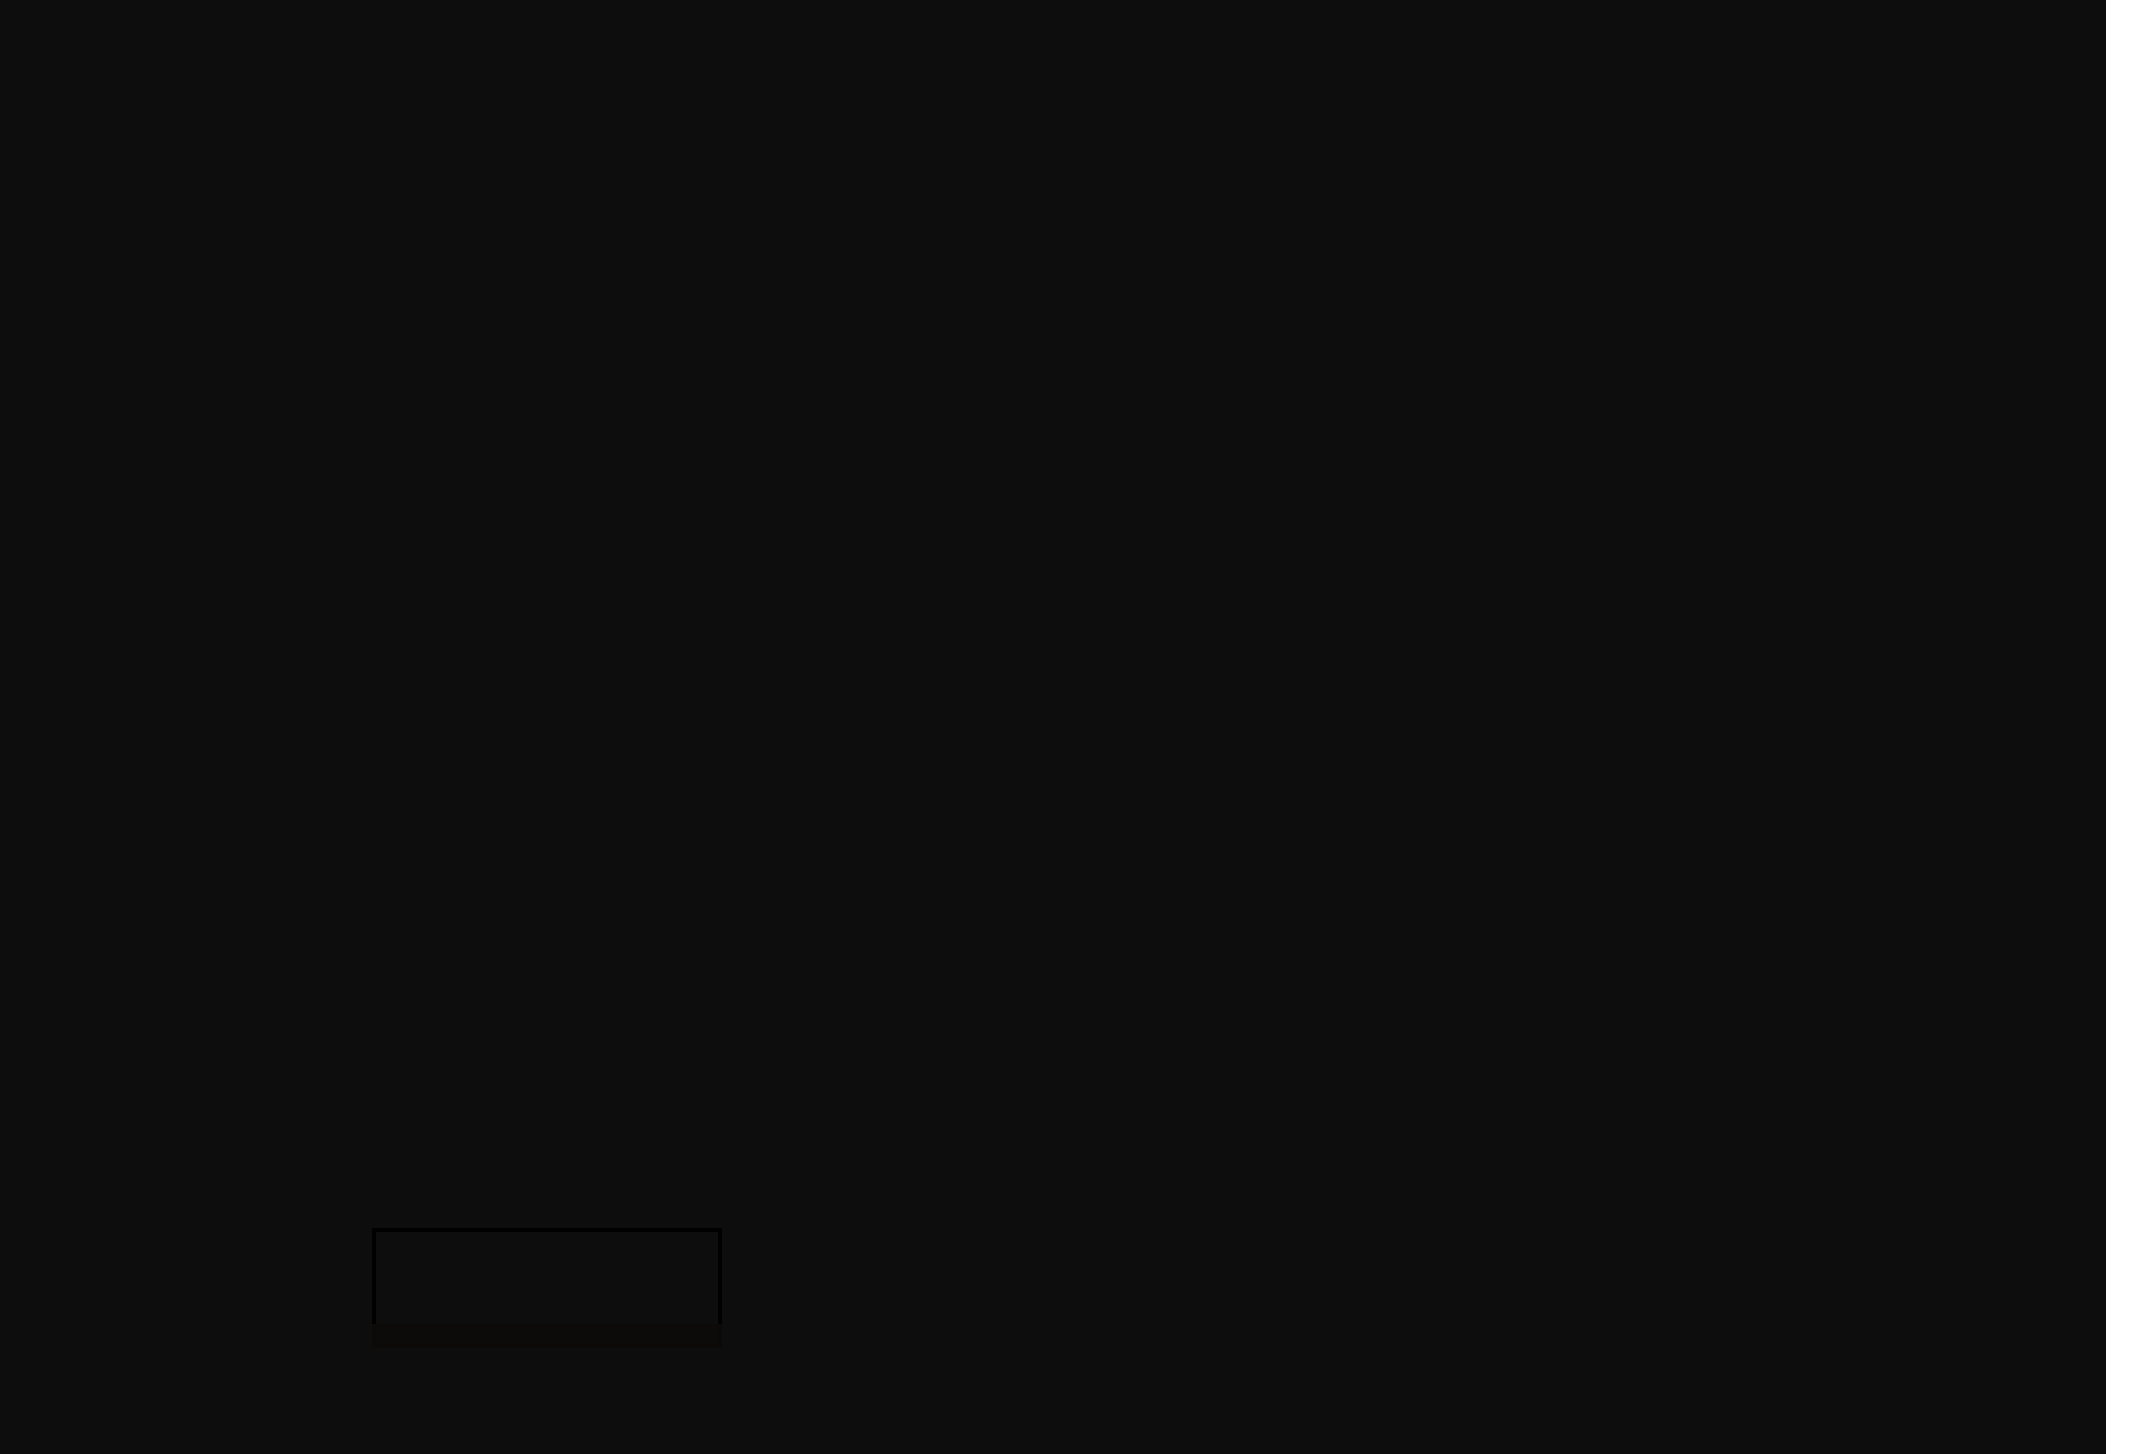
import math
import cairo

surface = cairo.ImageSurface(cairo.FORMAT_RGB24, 2136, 1454)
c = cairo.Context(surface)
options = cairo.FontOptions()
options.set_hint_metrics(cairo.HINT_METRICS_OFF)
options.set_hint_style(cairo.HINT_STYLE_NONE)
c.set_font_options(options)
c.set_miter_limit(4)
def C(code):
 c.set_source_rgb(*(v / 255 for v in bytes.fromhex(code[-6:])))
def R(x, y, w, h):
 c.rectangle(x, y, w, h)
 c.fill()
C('ffffff')
c.paint()
C('0d0d0d')
R(0,0,2106,1454)
c.rectangle(374,1230,346,116)
C('000000')
c.set_line_width(4)
c.stroke()
c.set_source_rgba(0.051,0.047,0.043,0.9)
R(372,1324,350,24)
surface.write_to_png('o.png')
